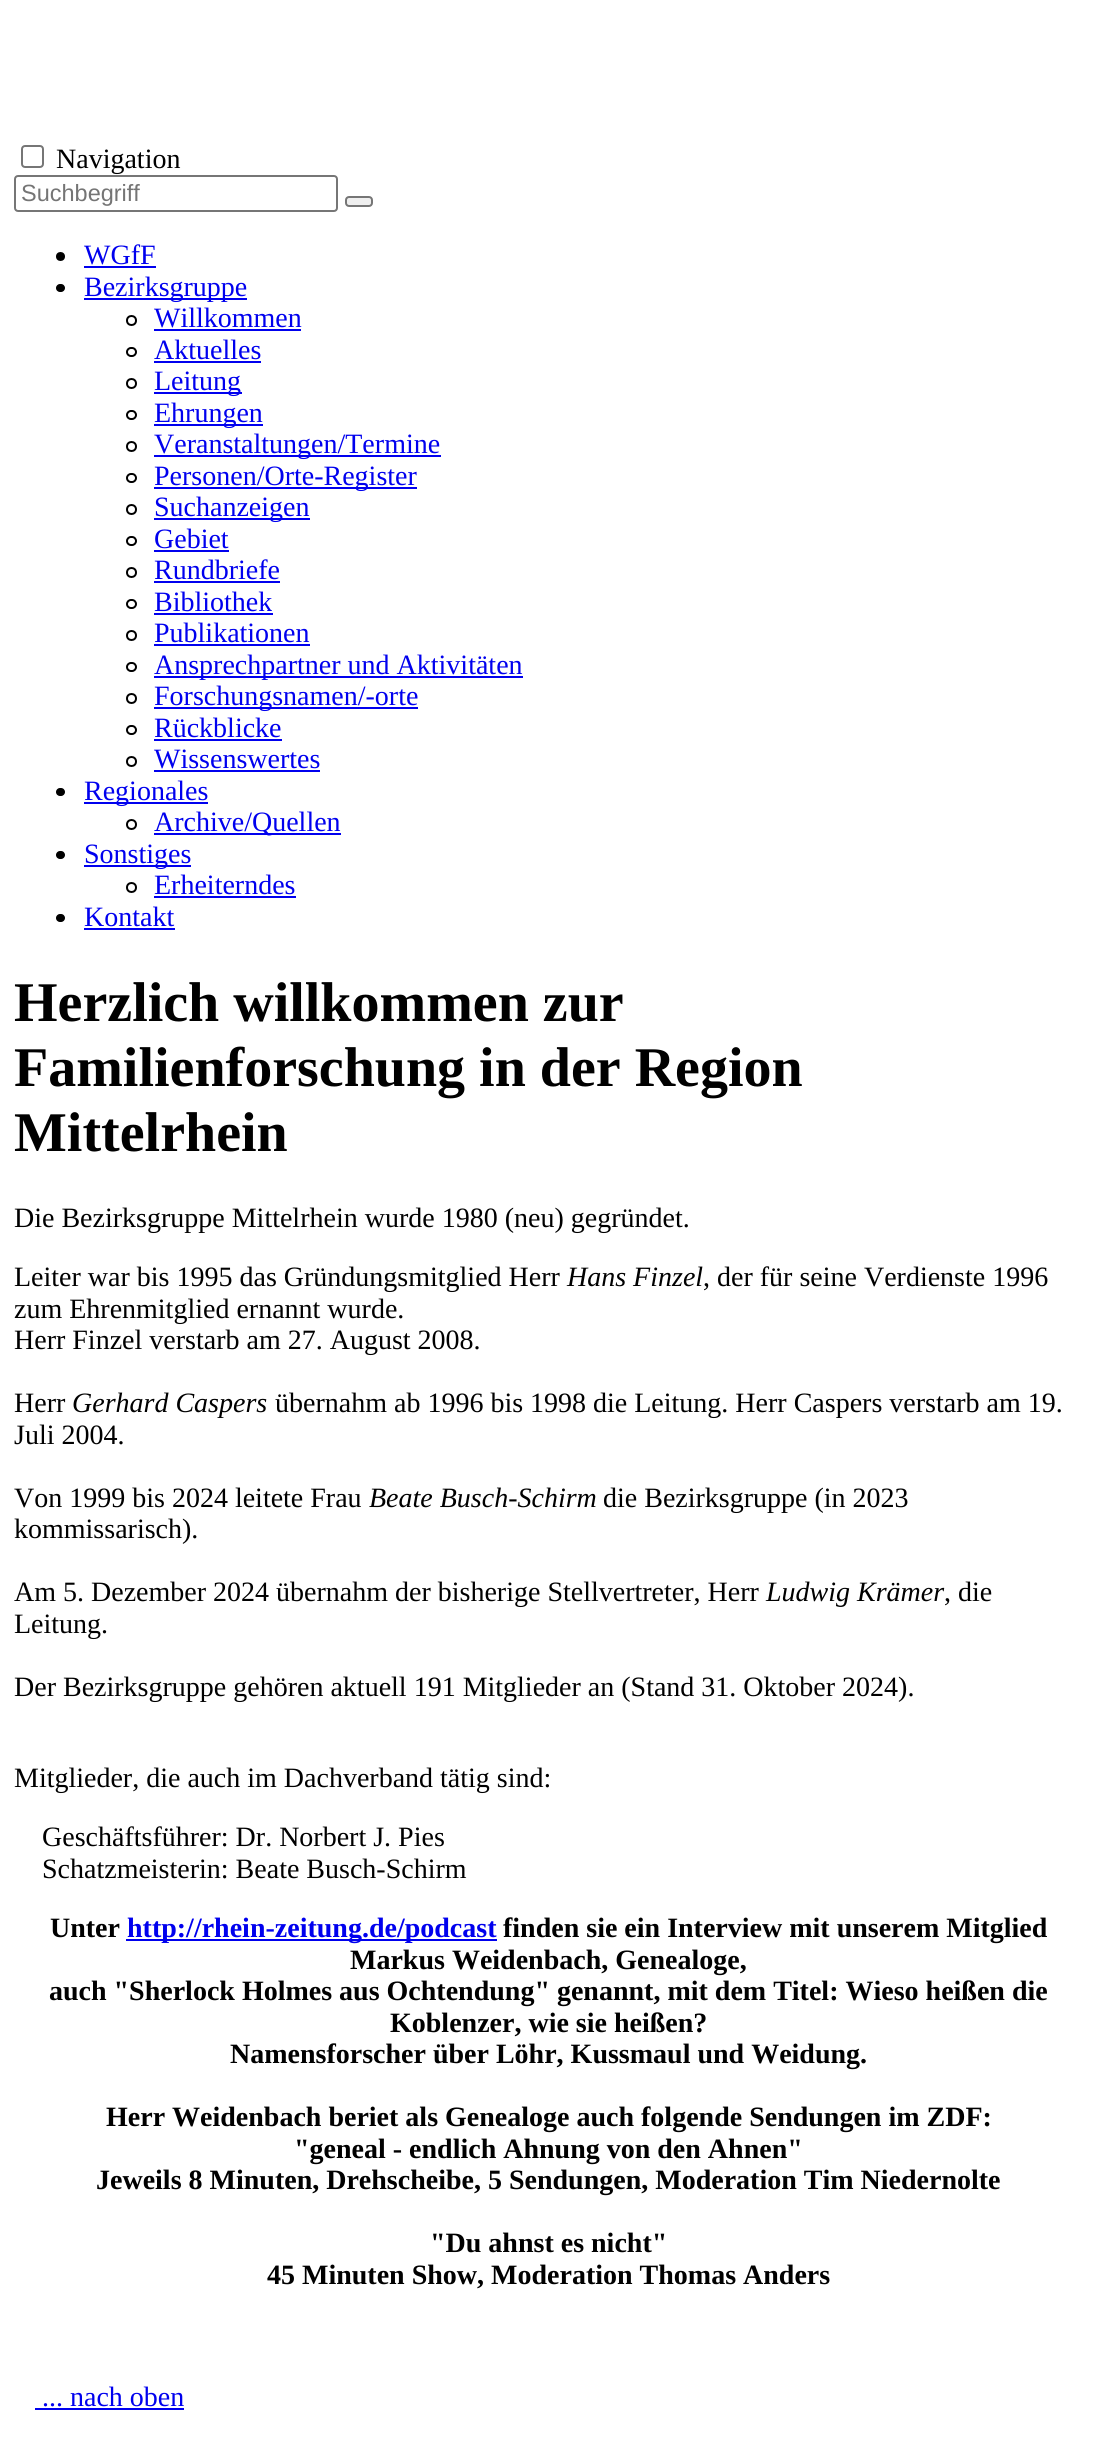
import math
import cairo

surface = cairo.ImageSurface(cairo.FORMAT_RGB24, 1096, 2463)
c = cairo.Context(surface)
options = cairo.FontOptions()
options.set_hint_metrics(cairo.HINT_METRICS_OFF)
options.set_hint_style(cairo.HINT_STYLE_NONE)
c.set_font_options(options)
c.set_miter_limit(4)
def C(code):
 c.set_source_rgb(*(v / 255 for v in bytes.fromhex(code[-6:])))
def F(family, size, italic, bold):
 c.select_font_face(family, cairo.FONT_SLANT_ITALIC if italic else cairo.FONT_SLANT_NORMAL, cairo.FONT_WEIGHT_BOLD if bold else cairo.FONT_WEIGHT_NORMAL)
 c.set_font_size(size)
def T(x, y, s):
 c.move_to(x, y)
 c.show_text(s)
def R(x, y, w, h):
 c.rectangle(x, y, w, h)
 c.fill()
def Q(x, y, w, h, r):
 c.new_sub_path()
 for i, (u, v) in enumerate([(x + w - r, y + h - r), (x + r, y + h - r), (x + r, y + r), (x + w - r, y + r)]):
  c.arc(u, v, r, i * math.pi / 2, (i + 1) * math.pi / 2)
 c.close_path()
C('ffffff')
c.paint()
Q(22,146,21,21,3)
C('767676')
c.stroke()
F('Liberation Serif',28,0,0)
C('000000')
T(56,168,'Navigation')
Q(15,176,322,35,3)
C('767676')
c.stroke()
F('Liberation Sans',23.5,0,0)
C('757575')
T(21,201,'Suchbegriff')
C('efefef')
Q(346,197,26,9,3)
c.fill_preserve()
C('767676')
c.stroke()
C('000000')
c.arc(60.5,256.5,4.5,0,2 * math.pi)
c.fill()
F('Liberation Serif',28,0,0)
C('0000ee')
T(84,264,'WGfF')
R(84,266,72,2)
C('000000')
Q(56,284,9,8,4)
c.fill()
C('0000ee')
R(84,298,163,2)
T(84,296,'Bezirksgruppe')
c.new_path()
c.arc(131.5,320.5,4.5,0,2 * math.pi)
C('000000')
c.stroke()
C('0000ee')
T(154,327,'Willkommen')
R(154,329,147,2)
Q(127,348,9,8,4)
C('000000')
c.stroke()
C('0000ee')
T(154,359,'Aktuelles')
R(154,361,107,2)
c.new_path()
c.arc(131.5,383.5,4.5,0,2 * math.pi)
C('000000')
c.stroke()
C('0000ee')
R(154,392,88,2)
T(154,390,'Leitung')
Q(127,411,9,8,4)
C('000000')
c.stroke()
C('0000ee')
R(154,424,109,2)
T(154,422,'Ehrungen')
c.new_path()
c.arc(131.5,446.5,4.5,0,2 * math.pi)
C('000000')
c.stroke()
C('0000ee')
R(154,455,287,2)
T(154,453,'Veranstaltungen/Termine')
Q(127,474,9,8,4)
C('000000')
c.stroke()
C('0000ee')
R(154,487,263,2)
T(154,485,'Personen/Orte-Register')
c.new_path()
c.arc(131.5,509.5,4.5,0,2 * math.pi)
C('000000')
c.stroke()
C('0000ee')
R(154,518,156,2)
T(154,516,'Suchanzeigen')
Q(127,537,9,8,4)
C('000000')
c.stroke()
C('0000ee')
T(154,548,'Gebiet')
R(154,550,75,2)
c.new_path()
c.arc(131.5,572.5,4.5,0,2 * math.pi)
C('000000')
c.stroke()
C('0000ee')
T(154,579,'Rundbriefe')
R(154,581,126,2)
Q(127,600,9,8,4)
C('000000')
c.stroke()
C('0000ee')
T(154,611,'Bibliothek')
R(154,613,119,2)
c.new_path()
c.arc(131.5,635.5,4.5,0,2 * math.pi)
C('000000')
c.stroke()
C('0000ee')
T(154,642,'Publikationen')
R(154,644,156,2)
Q(127,663,9,8,4)
C('000000')
c.stroke()
C('0000ee')
R(154,676,369,2)
T(154,674,'Ansprechpartner und Aktivitäten')
c.new_path()
c.arc(131.5,698.5,4.5,0,2 * math.pi)
C('000000')
c.stroke()
C('0000ee')
R(154,707,264,2)
T(154,705,'Forschungsnamen/-orte')
Q(127,726,9,8,4)
C('000000')
c.stroke()
C('0000ee')
T(154,737,'Rückblicke')
R(154,739,128,2)
c.new_path()
c.arc(131.5,761.5,4.5,0,2 * math.pi)
C('000000')
c.stroke()
C('0000ee')
T(154,768,'Wissenswertes')
R(154,770,166,2)
C('000000')
Q(56,788,9,8,4)
c.fill()
C('0000ee')
R(84,802,124,2)
T(84,800,'Regionales')
c.new_path()
c.arc(131.5,824.5,4.5,0,2 * math.pi)
C('000000')
c.stroke()
C('0000ee')
R(154,833,187,2)
T(154,831,'Archive/Quellen')
C('000000')
Q(56,851,9,8,4)
c.fill()
C('0000ee')
R(84,865,107,2)
T(84,863,'Sonstiges')
c.new_path()
c.arc(131.5,887.5,4.5,0,2 * math.pi)
C('000000')
c.stroke()
C('0000ee')
T(154,894,'Erheiterndes')
R(154,896,142,2)
C('000000')
Q(56,914,9,8,4)
c.fill()
C('0000ee')
T(84,926,'Kontakt')
R(84,928,91,2)
F('Liberation Serif',56,0,1)
C('000000')
T(14,1021,'Herzlich willkommen zur')
T(14,1086,'Familienforschung in der Region')
T(14,1151,'Mittelrhein')
F('Liberation Serif',28,0,0)
T(14,1227,'Die Bezirksgruppe Mittelrhein wurde 1980 (neu) gegründet.')
T(14,1286,'Leiter war bis 1995 das Gründungsmitglied Herr')
F('Liberation Serif',28,1,0)
T(567,1286,'Hans Finzel')
F('Liberation Serif',28,0,0)
T(703,1286,', der für seine Verdienste 1996')
T(14,1318,'zum Ehrenmitglied ernannt wurde.')
T(14,1349,'Herr Finzel verstarb am 27. August 2008.')
T(14,1412,'Herr')
F('Liberation Serif',28,1,0)
T(72,1412,'Gerhard Caspers')
F('Liberation Serif',28,0,0)
T(275,1412,'übernahm ab 1996 bis 1998 die Leitung. Herr Caspers verstarb am 19.')
T(14,1444,'Juli 2004.')
T(14,1507,'Von 1999 bis 2024 leitete Frau')
F('Liberation Serif',28,1,0)
T(369,1507,'Beate Busch-Schirm')
F('Liberation Serif',28,0,0)
T(603,1507,'die Bezirksgruppe (in 2023')
T(14,1538,'kommissarisch).')
T(14,1601,'Am 5. Dezember 2024 übernahm der bisherige Stellvertreter, Herr')
F('Liberation Serif',28,1,0)
T(766,1601,'Ludwig Krämer')
F('Liberation Serif',28,0,0)
T(944,1601,', die')
T(14,1633,'Leitung.')
T(14,1696,'Der Bezirksgruppe gehören aktuell 191 Mitglieder an (Stand 31. Oktober 2024).')
T(14,1787,'Mitglieder, die auch im Dachverband tätig sind:')
T(42,1846,'Geschäftsführer: Dr. Norbert J. Pies')
T(42,1878,'Schatzmeisterin: Beate Busch-Schirm')
F('Liberation Serif',28,0,1)
T(50,1937,'Unter')
C('0000ee')
R(126,1939,371,2)
T(127,1937,'http://rhein-zeitung.de/podcast')
C('000000')
T(503,1937,'finden sie ein Interview mit unserem Mitglied')
T(350,1969,'Markus Weidenbach, Genealoge,')
T(49,2000,'auch "Sherlock Holmes aus Ochtendung" genannt, mit dem Titel: Wieso heißen die')
T(390,2032,'Koblenzer, wie sie heißen?')
T(230,2063,'Namensforscher über Löhr, Kussmaul und Weidung.')
T(106,2126,'Herr Weidenbach beriet als Genealoge auch folgende Sendungen im ZDF:')
T(294,2158,'"geneal - endlich Ahnung von den Ahnen"')
T(96,2189,'Jeweils 8 Minuten, Drehscheibe, 5 Sendungen, Moderation Tim Niedernolte')
T(430,2252,'"Du ahnst es nicht"')
T(267,2284,'45 Minuten Show, Moderation Thomas Anders')
F('Liberation Serif',28,0,0)
C('0000ee')
T(42,2406,'... nach oben')
R(35,2408,149,2)
surface.write_to_png('o.png')
